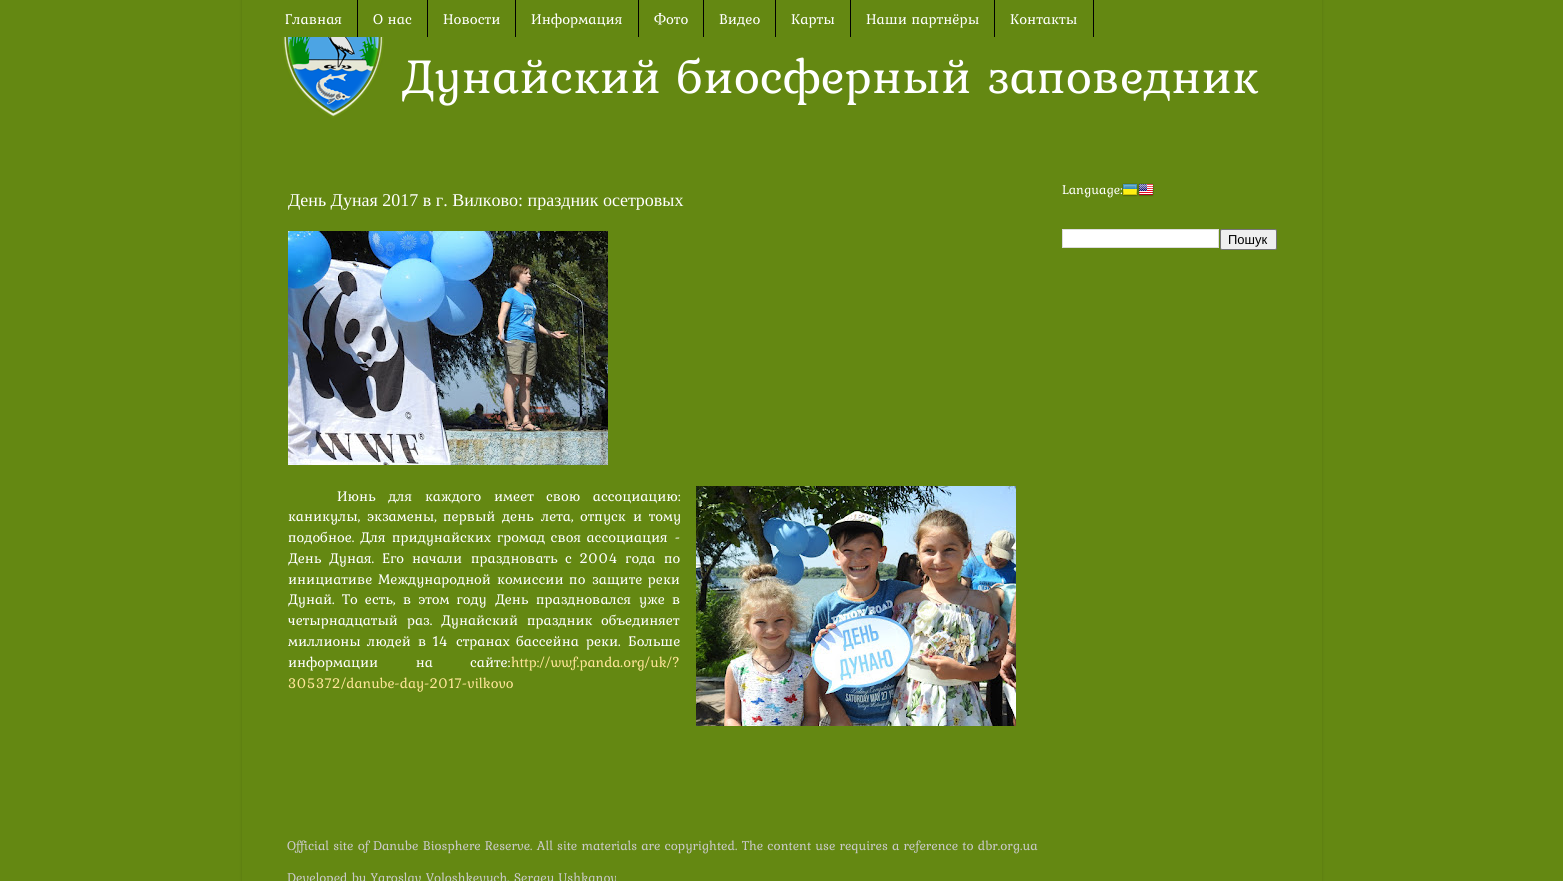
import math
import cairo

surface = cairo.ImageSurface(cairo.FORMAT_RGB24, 1563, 881)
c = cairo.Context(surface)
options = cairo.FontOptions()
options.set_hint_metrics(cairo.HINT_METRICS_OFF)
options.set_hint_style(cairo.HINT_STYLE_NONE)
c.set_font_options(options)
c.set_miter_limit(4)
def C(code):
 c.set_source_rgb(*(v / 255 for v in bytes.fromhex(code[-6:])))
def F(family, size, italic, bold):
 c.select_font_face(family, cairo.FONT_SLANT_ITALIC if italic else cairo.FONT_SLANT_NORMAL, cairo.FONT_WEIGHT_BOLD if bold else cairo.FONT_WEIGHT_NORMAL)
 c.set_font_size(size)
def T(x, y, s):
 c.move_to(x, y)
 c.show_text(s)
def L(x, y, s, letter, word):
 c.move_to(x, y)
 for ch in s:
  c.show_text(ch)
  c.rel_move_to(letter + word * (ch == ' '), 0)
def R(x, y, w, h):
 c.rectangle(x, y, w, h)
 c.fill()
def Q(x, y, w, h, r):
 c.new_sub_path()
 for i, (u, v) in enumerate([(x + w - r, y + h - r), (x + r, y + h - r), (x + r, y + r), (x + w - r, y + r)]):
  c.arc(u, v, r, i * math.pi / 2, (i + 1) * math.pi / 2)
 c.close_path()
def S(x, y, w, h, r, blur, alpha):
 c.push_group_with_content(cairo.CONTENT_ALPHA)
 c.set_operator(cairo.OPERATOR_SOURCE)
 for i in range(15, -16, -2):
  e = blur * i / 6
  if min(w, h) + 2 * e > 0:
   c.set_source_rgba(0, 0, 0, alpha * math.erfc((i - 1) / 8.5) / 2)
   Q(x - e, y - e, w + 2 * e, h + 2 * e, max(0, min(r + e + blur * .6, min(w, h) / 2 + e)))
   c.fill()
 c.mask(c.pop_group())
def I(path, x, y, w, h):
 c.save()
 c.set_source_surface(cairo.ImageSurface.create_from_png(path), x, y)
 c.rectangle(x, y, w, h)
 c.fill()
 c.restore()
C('648812')
c.paint()
C('000000')
S(242,-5,1080,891,0,1.5,.15)
C('648812')
R(242,0,1080,881)
C('000000')
R(357,0,1,37)
F('Kurale',15,0,0)
C('ffffff')
T(285,24,'Главная')
C('000000')
R(427,0,1,37)
C('ffffff')
T(373,24,'О нас')
C('000000')
R(515,0,1,37)
C('ffffff')
T(443,24,'Новости')
C('000000')
R(638,0,1,37)
C('ffffff')
T(531,24,'Информация')
C('000000')
R(703,0,1,37)
C('ffffff')
T(654,24,'Фото')
C('000000')
R(775,0,1,37)
C('ffffff')
T(719,24,'Видео')
C('000000')
R(850,0,1,37)
C('ffffff')
T(791,24,'Карты')
C('000000')
R(994,0,1,37)
C('ffffff')
T(866,24,'Наши партнёры')
C('000000')
R(1093,0,1,37)
C('ffffff')
T(1010,24,'Контакты')
I('1.png',282,37,103,81)
F('Kurale',50,0,0)
T(401,93,'Дунайский биосферный заповедник')
F('Liberation Serif',18,0,0)
T(288,206,'День Дуная 2017 в г. Вилково: праздник осетровых')
I('2.png',288,231,320,234)
F('Kurale',14.8,0,0)
L(337,501,'Июнь для',0,8)
T(425,501,'каждого')
T(494,501,'имеет')
L(546,501,'свою ассоциацию',0,8)
T(678,501,':')
T(288,521,'каникулы,')
T(367,521,'экзамены,')
T(443,521,'первый')
T(502,521,'день')
T(541,521,'лета,')
T(580,521,'отпуск')
L(633,521,'и тому',0,2)
T(288,542,'подобное.')
T(360,542,'Для')
T(392,542,'придунайских')
L(497,542,'громад своя ассоциация',0,1)
T(675,542,'-')
T(288,563,'День')
T(329,563,'Дуная.')
T(382,563,'Его')
T(412,563,'начали')
T(471,563,'праздновать')
L(565,563,'с 2004 года',0,3)
T(664,563,'по')
T(288,584,'инициативе')
T(378,584,'Международной')
L(497,584,'комиссии по',0,1)
L(592,584,'защите реки',0,1)
T(288,604,'Дунай.')
L(342,604,'То есть, в этом году',0,2.5)
T(495,604,'День')
T(536,604,'праздновался')
T(639,604,'уже')
T(672,604,'в')
T(288,625,'четырнадцатый')
T(407,625,'раз.')
T(441,625,'Дунайский')
L(527,625,'праздник объединяет',0,4)
T(288,646,'миллионы')
T(367,646,'людей')
L(418,646,'в 14',0,2)
T(456,646,'странах')
T(516,646,'бассейна')
T(586,646,'реки.')
T(628,646,'Больше')
L(288,667,'информации на',0,33)
T(470,667,'сайте:')
C('ffe599')
T(511,667,'http://wwf.panda.org/uk/?')
T(288,688,'305372/danube-day-2017-vilkovo')
I('3.png',696,486,320,240)
F('Kurale',13.5,0,0)
C('ffffff')
T(1062,194,'Language:')
I('4.png',1122,183,16,14)
I('5.png',1138,183,16,14)
c.rectangle(1062.5,229.5,156,18)
c.fill_preserve()
C('dddddd')
c.set_line_width(1)
c.stroke()
C('efefef')
Q(1220.5,229.5,56,20,1.5)
c.fill_preserve()
C('767676')
c.stroke()
F('Liberation Sans',13,0,0)
C('000000')
T(1228,244,'Пошук')
F('Kurale',13.5,0,0)
C('cacaca')
T(287,850,'Official site of Danube Biosphere Reserve. All site materials are copyrighted. The content use requires a reference to dbr.org.ua')
T(287,882,'Developed by Yaroslav Voloshkevych, Sergey Ushkanov')
surface.write_to_png('o.png')
